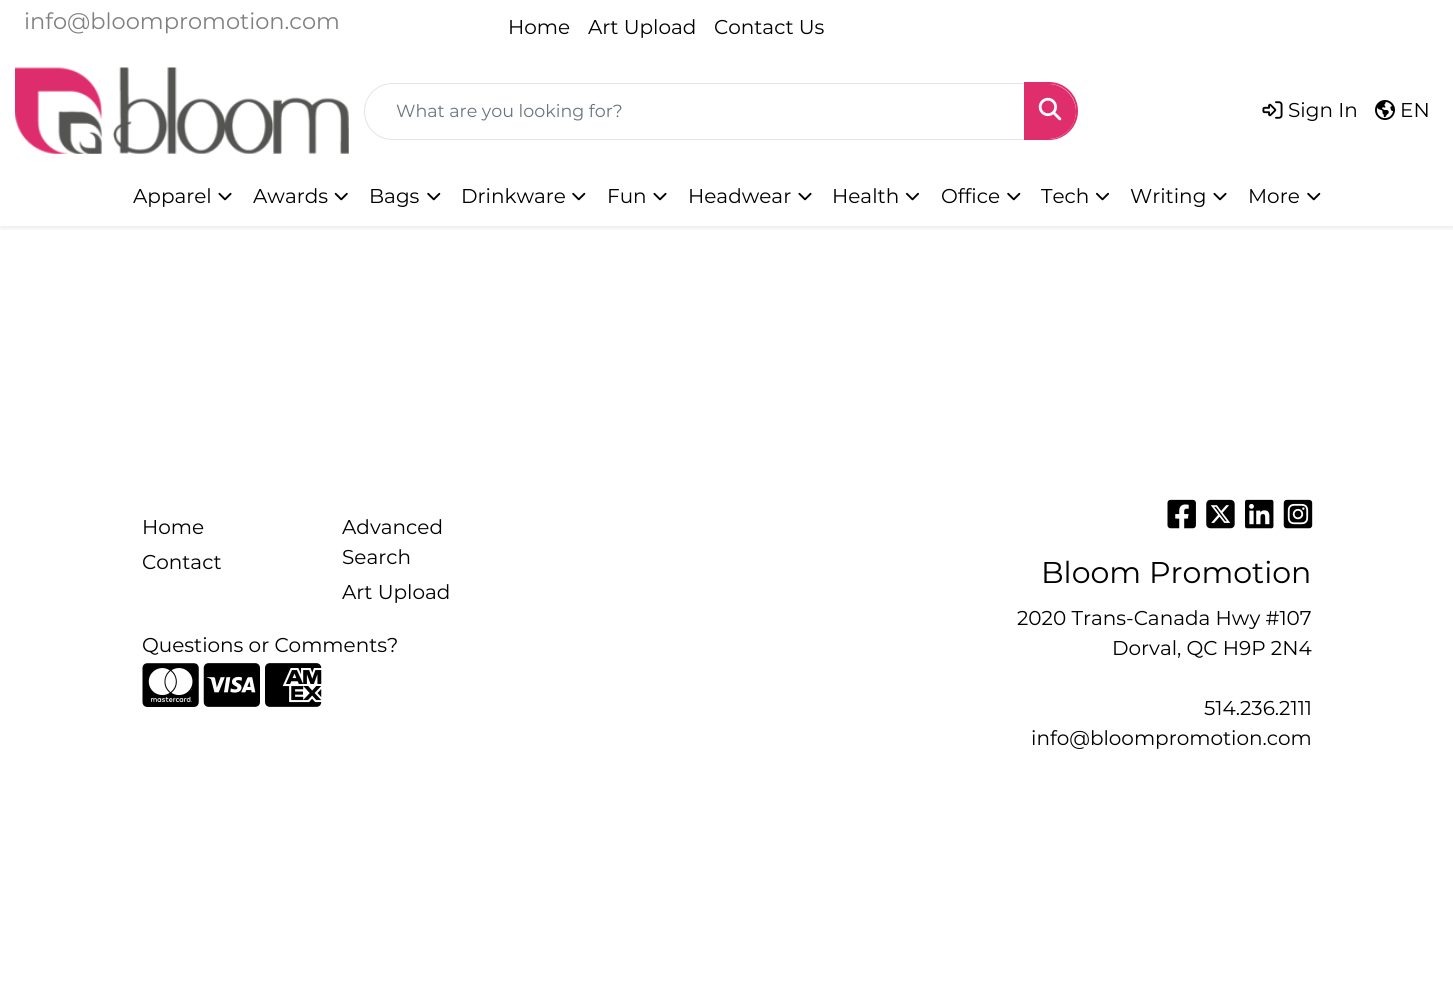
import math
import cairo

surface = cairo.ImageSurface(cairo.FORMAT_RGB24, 1453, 992)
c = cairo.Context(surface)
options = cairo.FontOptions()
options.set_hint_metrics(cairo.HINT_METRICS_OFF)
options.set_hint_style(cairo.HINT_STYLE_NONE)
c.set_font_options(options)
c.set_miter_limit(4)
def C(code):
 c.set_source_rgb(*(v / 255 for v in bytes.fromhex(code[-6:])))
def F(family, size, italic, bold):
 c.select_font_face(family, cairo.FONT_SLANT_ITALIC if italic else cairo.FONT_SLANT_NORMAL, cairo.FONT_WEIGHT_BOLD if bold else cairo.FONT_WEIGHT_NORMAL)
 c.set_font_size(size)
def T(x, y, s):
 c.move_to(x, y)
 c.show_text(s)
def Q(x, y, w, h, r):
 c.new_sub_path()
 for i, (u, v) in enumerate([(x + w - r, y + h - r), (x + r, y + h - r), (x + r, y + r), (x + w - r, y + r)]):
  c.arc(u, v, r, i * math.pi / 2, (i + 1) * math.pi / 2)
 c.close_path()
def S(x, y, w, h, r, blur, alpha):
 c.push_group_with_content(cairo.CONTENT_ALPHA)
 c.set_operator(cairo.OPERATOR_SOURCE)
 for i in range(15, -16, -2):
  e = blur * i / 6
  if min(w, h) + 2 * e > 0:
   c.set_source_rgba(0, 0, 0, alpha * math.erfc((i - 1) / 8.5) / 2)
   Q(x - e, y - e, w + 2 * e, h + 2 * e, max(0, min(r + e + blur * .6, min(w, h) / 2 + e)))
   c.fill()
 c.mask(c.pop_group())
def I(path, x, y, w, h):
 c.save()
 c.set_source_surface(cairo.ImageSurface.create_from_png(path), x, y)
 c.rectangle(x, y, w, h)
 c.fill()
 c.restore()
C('ffffff')
c.paint()
F('Montserrat Thin',22.5,0,0)
C('808080')
T(24,29,'info@bloompromotion.com')
F('Montserrat Thin',20,0,0)
C('000000')
T(508,34,'Home')
T(588,34,'Art Upload')
T(714,34,'Contact Us')
I('1.png',15,67,334,87)
c.new_path()
c.move_to(392.5,83.5)
c.line_to(1024.5,83.5)
c.line_to(1024.5,139.5)
c.line_to(392.5,139.5)
c.curve_to(377,139.5,364.5,127,364.5,111.5)
c.curve_to(364.5,96,377,83.5,392.5,83.5)
c.close_path()
C('e4e4e4')
c.set_line_width(1)
c.stroke()
F('Montserrat Thin',17.5,0,0)
C('6c757d')
T(396,117,'What are you looking for?')
C('e02e6c')
c.new_path()
c.move_to(1024,84)
c.line_to(1048.5,84)
c.curve_to(1063.5,84,1076,96.5,1076,111.5)
c.curve_to(1076,126.5,1063.5,139,1048.5,139)
c.line_to(1024,139)
c.close_path()
c.fill()
c.set_fill_rule(cairo.FILL_RULE_EVEN_ODD)
c.new_path()
c.move_to(1024,82)
c.line_to(1049,82)
c.curve_to(1065,82,1078,95,1078,111)
c.curve_to(1078,127,1065,140,1049,140)
c.line_to(1024,140)
c.close_path()
c.move_to(1024,84)
c.line_to(1049,84)
c.curve_to(1064,84,1076,96,1076,111)
c.curve_to(1076,126,1064,139,1049,139)
c.line_to(1024,139)
c.close_path()
c.fill()
I('2.png',1038,97,24,24)
I('3.png',1262,101,21,18)
F('Montserrat Thin',20,0,0)
C('000000')
T(1288,117,'Sign In')
I('4.png',1375,100,20,20)
T(1400,117,'EN')
c.save()
c.set_fill_rule(cairo.FILL_RULE_WINDING)
c.rectangle(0,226,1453,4)
c.clip()
C('000000')
S(0,169,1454,60,0,2.5,.07)
c.restore()
T(133,203,'Apparel')
I('5.png',218,192,14,9)
T(253,203,'Awards')
I('6.png',334,192,14,9)
T(369,203,'Bags')
I('7.png',427,192,14,9)
T(461,203,'Drinkware')
I('7.png',572,192,14,9)
T(607,203,'Fun')
I('5.png',653,192,14,9)
T(688,203,'Headwear')
I('5.png',798,192,14,9)
T(832,203,'Health')
I('8.png',906,192,13,9)
T(941,203,'Office')
I('7.png',1007,192,14,9)
T(1041,203,'Tech')
I('8.png',1096,192,13,9)
T(1130,203,'Writing')
I('5.png',1213,192,14,9)
T(1248,203,'More')
I('7.png',1307,192,14,9)
T(142,534,'Home')
T(142,569,'Contact')
T(342,534,'Advanced')
T(342,564,'Search')
T(342,599,'Art Upload')
T(142,652,'Questions or Comments?')
I('9.png',142,663,57,44)
I('10.png',203,663,57,44)
I('11.png',265,663,57,44)
I('12.png',1167,499,29,30)
I('13.png',1206,499,29,30)
I('14.png',1245,499,29,30)
I('15.png',1283,499,30,30)
F('Montserrat Thin',30,0,0)
T(1041,583,'Bloom Promotion')
F('Montserrat Thin',20,0,0)
T(1017,625,'2020 Trans-Canada Hwy #107')
T(1112,655,'Dorval, QC H9P 2N4')
T(1204,715,'514.236.2111')
T(1031,745,'info@bloompromotion.com')
surface.write_to_png('o.png')
